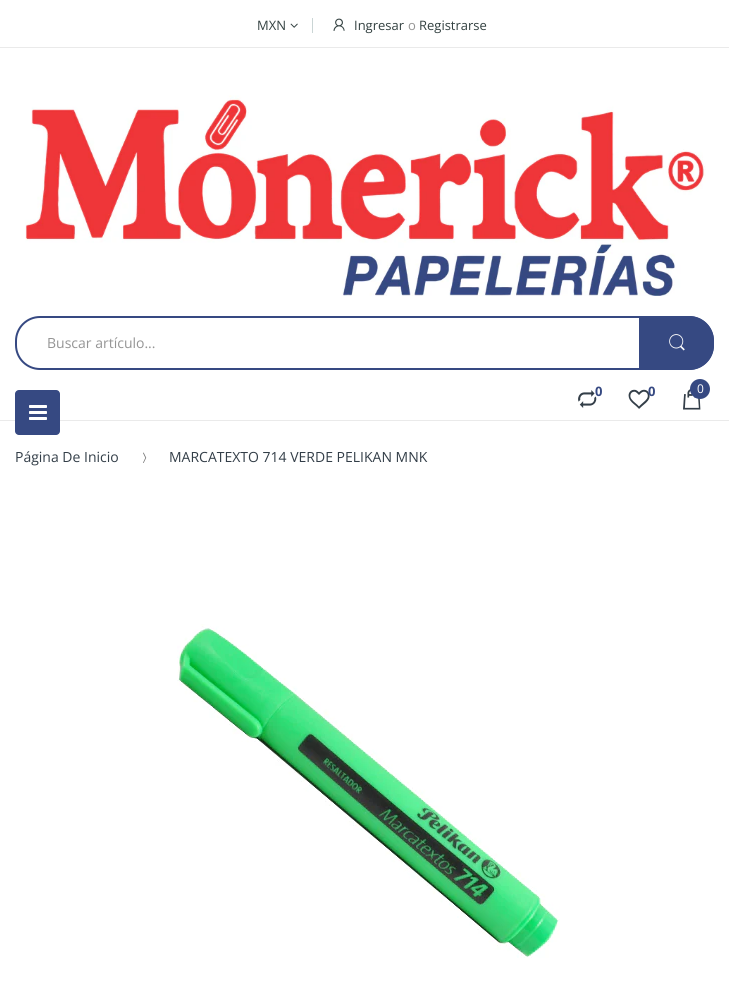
import math
import cairo

surface = cairo.ImageSurface(cairo.FORMAT_RGB24, 729, 1005)
c = cairo.Context(surface)
options = cairo.FontOptions()
options.set_hint_metrics(cairo.HINT_METRICS_OFF)
options.set_hint_style(cairo.HINT_STYLE_NONE)
c.set_font_options(options)
c.set_miter_limit(4)
def C(code):
 c.set_source_rgb(*(v / 255 for v in bytes.fromhex(code[-6:])))
def F(family, size, italic, bold):
 c.select_font_face(family, cairo.FONT_SLANT_ITALIC if italic else cairo.FONT_SLANT_NORMAL, cairo.FONT_WEIGHT_BOLD if bold else cairo.FONT_WEIGHT_NORMAL)
 c.set_font_size(size)
def T(x, y, s):
 c.move_to(x, y)
 c.show_text(s)
def R(x, y, w, h):
 c.rectangle(x, y, w, h)
 c.fill()
def Q(x, y, w, h, r):
 c.new_sub_path()
 for i, (u, v) in enumerate([(x + w - r, y + h - r), (x + r, y + h - r), (x + r, y + r), (x + w - r, y + r)]):
  c.arc(u, v, r, i * math.pi / 2, (i + 1) * math.pi / 2)
 c.close_path()
def I(path, x, y, w, h):
 c.save()
 c.set_source_surface(cairo.ImageSurface.create_from_png(path), x, y)
 c.rectangle(x, y, w, h)
 c.fill()
 c.restore()
C('ffffff')
c.paint()
C('eaeaea')
R(0,47,729,1)
F('Open Sans',13,0,0)
C('334141')
T(257,30,'MXN')
I('1.png',290,23,8,5)
C('cad5d5')
R(312,18,1,15)
I('2.png',333,18,12,13)
C('334141')
T(354,30,'Ingresar')
C('959595')
T(408,30,'o')
C('334141')
T(419,30,'Registrarse')
I('3.png',25,95,681,201)
Q(16,317,697,52,24)
C('364982')
c.stroke()
F('Open Sans',14,0,0)
C('959595')
T(47,348,'Buscar artículo...')
C('364982')
c.new_path()
c.move_to(639,316)
c.line_to(689,316)
c.curve_to(703,316,714,327,714,341)
c.line_to(714,345)
c.curve_to(714,359,703,370,689,370)
c.line_to(639,370)
c.close_path()
c.fill()
I('4.png',669,334,16,17)
C('eaeaea')
R(0,420,729,1)
C('364982')
Q(15,390,45,45,4)
c.fill()
I('5.png',29,405,18,15)
I('6.png',578,390,19,18)
F('Open Sans',13,0,1)
T(595,396,'0')
I('7.png',628,389,22,20)
T(648,396,'0')
I('8.png',683,389,18,21)
c.arc(700,389,10,0,2 * math.pi)
c.fill()
F('Open Sans',12,0,0)
C('fefefe')
T(697,393,'0')
F('Open Sans',14,0,0)
C('333e48')
T(15,462,'Página De Inicio')
I('9.png',143,452,4,11)
T(169,462,'MARCATEXTO 714 VERDE PELIKAN MNK')
I('10.png',177,624,383,334)
surface.write_to_png('o.png')
